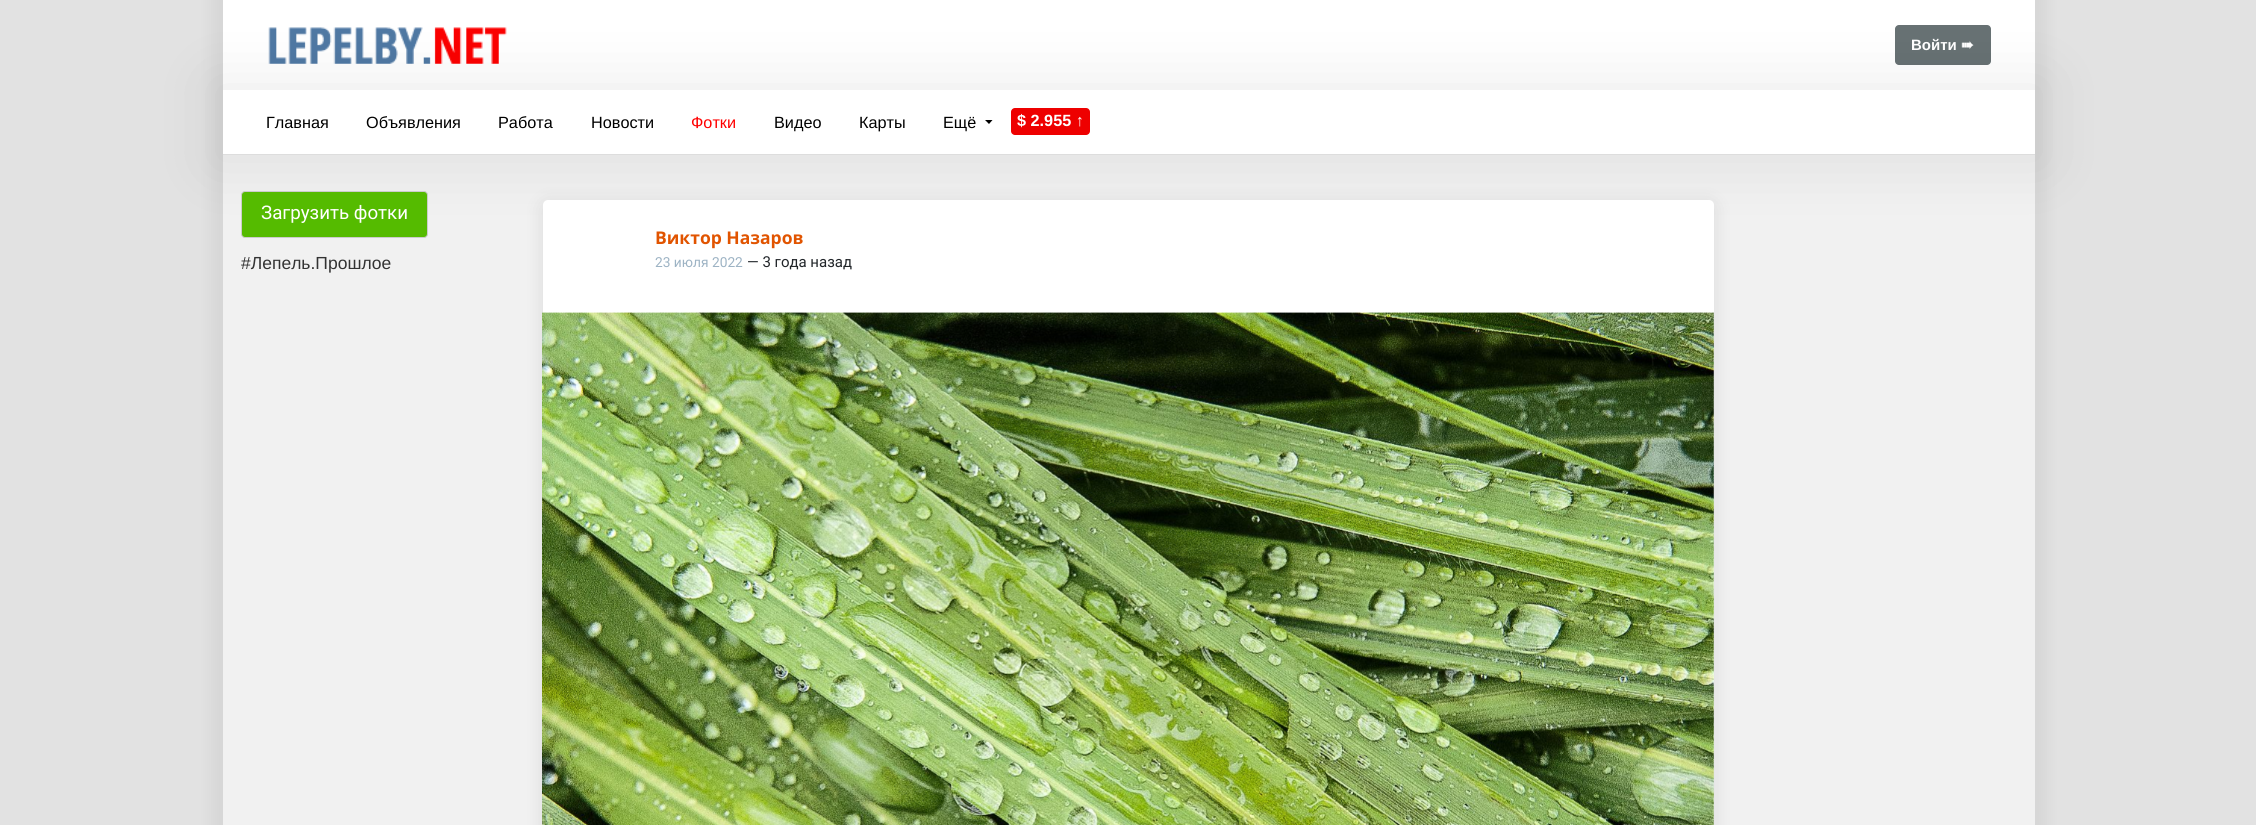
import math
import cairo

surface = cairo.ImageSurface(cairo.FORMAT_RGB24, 2256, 825)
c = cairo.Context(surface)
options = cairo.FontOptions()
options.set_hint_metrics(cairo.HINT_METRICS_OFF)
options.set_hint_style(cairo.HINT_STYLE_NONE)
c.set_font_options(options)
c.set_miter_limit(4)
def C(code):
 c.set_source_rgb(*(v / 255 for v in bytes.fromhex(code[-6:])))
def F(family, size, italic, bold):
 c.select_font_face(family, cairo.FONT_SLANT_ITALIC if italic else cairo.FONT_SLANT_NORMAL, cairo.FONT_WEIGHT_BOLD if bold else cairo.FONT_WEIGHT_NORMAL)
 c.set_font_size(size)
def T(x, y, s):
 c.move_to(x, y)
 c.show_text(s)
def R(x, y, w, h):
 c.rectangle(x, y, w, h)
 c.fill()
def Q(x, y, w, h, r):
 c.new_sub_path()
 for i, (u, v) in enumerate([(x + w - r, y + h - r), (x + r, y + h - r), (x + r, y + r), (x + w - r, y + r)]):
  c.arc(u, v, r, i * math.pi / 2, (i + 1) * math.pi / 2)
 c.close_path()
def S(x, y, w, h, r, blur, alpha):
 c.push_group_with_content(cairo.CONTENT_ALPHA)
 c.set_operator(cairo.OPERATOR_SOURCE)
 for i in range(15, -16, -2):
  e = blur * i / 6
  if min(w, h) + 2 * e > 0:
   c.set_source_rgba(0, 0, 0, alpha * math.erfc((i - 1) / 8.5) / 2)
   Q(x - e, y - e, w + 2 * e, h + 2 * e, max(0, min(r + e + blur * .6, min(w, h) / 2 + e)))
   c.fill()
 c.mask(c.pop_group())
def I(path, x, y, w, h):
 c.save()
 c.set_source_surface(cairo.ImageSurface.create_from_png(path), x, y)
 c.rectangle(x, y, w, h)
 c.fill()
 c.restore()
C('e2e2e2')
c.paint()
C('000000')
S(210,-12,1838,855,0,6,.05)
C('ffffff')
R(223,0,1812,154)
I('1.png',268,27,239,37)
C('677173')
Q(1895,25,96,40,4)
c.fill()
F('Liberation Sans',15,0,1)
C('ffffff')
T(1911,50,'Войти')
F('DejaVu Sans',15,0,1)
T(1961,50,'➠')
C('f1f1f1')
R(223,155,1812,670)
c.save()
c.set_fill_rule(cairo.FILL_RULE_EVEN_ODD)
c.new_path()
c.move_to(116,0)
c.line_to(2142,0)
c.line_to(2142,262)
c.line_to(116,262)
c.close_path()
c.move_to(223,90)
c.line_to(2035,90)
c.line_to(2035,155)
c.line_to(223,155)
c.close_path()
c.clip()
C('000000')
S(210,78,1838,90,0,31,.07)
c.restore()
C('dddddd')
R(223,154,1812,1)
F('Liberation Sans',16.25,0,0)
C('000000')
T(266,128,'Главная')
T(366,128,'Объявления')
T(498,128,'Работа')
T(591,128,'Новости')
C('ff0000')
T(691,128,'Фотки')
C('000000')
T(774,128,'Видео')
T(859,128,'Карты')
T(943,128,'Ещё')
c.new_path()
c.move_to(985,120)
c.line_to(992.5,120)
c.line_to(989,124)
c.close_path()
c.fill()
C('ee0000')
Q(1011,108,79,27,4)
c.fill()
F('Liberation Sans',16.25,0,1)
C('ffffff')
T(1017,126,'$ 2.955 ↑')
C('55bb00')
Q(241.5,191.5,186,46,3.5)
c.fill_preserve()
C('cccccc')
c.set_line_width(1)
c.stroke()
F('Roboto',18.75,0,0)
C('ffffff')
T(261,219,'Загрузить фотки')
F('Liberation Sans',17.5,0,0)
C('333333')
T(241,269,'#Лепель.Прошлое')
C('000000')
S(543,203,1171,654,5,9,.1)
C('ffffff')
Q(543,200,1171,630,5)
c.fill()
F('Open Sans',17.5,0,1)
C('e15400')
T(655,244,'Виктор Назаров')
F('Roboto',13.75,0,0)
C('9db3c4')
T(655,267,'23 июля 2022')
F('Roboto',15,0,0)
C('212529')
T(747,267,'— 3 года назад')
I('2.png',542,312,1172,513)
surface.write_to_png('o.png')
